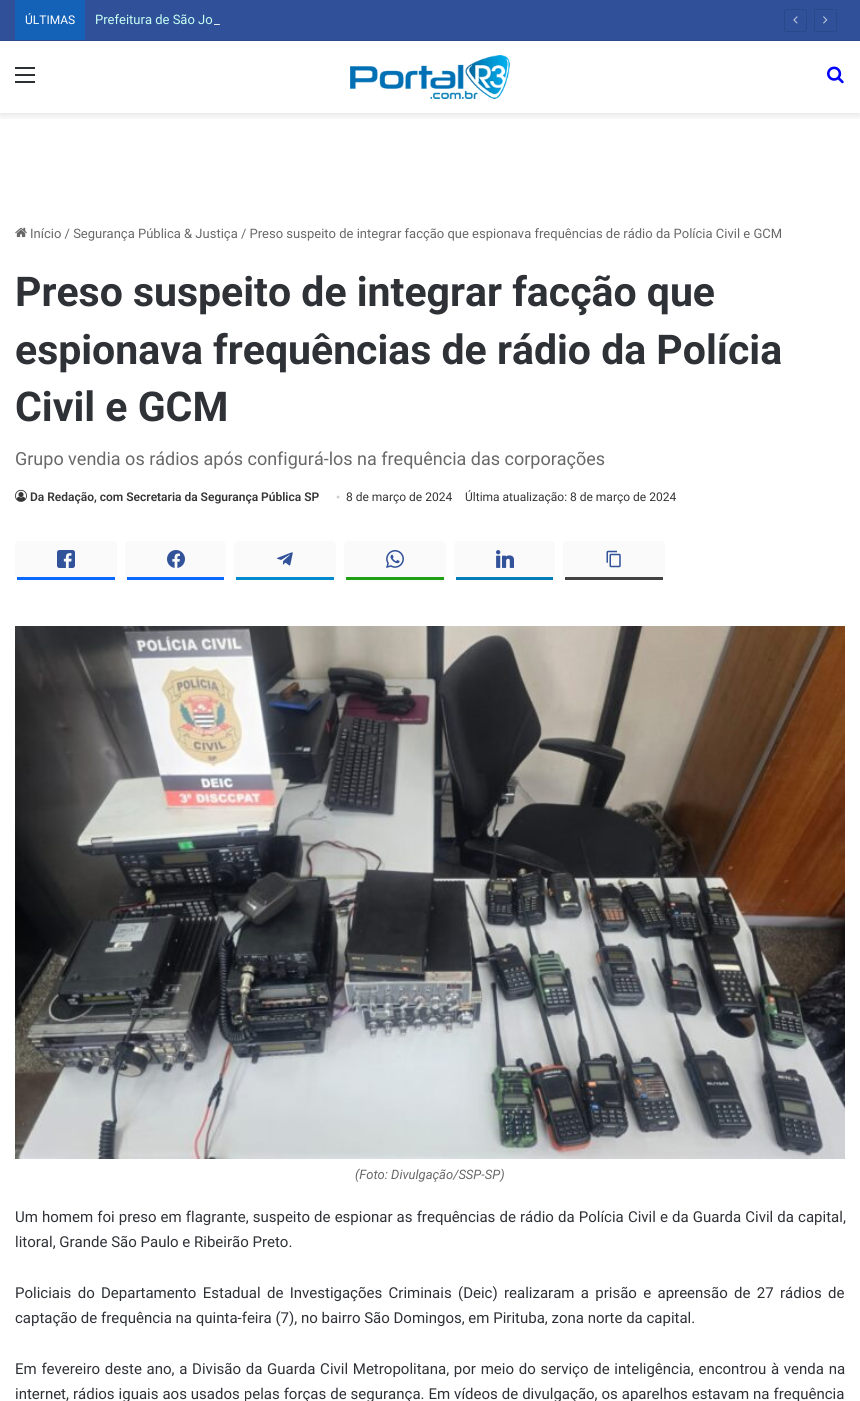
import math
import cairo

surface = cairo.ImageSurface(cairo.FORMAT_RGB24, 860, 1401)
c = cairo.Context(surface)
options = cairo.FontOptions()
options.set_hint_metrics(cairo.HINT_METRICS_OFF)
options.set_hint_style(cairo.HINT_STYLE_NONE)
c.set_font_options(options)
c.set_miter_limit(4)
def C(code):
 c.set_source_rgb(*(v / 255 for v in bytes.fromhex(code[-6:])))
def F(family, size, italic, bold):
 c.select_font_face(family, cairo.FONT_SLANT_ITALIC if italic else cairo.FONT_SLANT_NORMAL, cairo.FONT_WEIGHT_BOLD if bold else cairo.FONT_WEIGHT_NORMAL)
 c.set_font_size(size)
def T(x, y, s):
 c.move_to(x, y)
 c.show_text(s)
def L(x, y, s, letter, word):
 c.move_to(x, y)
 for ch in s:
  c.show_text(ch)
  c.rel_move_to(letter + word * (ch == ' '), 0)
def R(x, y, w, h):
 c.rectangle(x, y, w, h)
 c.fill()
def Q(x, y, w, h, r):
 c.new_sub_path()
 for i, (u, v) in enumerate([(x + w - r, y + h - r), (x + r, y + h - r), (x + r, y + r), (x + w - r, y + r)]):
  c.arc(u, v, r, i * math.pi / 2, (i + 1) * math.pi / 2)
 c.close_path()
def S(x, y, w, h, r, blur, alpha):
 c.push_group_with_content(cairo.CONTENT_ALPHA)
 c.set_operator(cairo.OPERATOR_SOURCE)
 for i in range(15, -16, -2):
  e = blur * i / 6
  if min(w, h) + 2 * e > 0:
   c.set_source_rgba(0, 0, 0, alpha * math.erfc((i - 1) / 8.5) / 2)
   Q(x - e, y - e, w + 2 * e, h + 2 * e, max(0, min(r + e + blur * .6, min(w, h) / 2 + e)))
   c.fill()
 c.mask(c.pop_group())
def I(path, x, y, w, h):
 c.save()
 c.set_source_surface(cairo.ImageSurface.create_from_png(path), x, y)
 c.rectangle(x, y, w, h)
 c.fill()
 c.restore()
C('ffffff')
c.paint()
c.save()
c.rectangle(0,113,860,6)
c.clip()
C('000000')
S(0,44,860,72,0,3.5,.1)
c.restore()
C('305099')
R(0,0,860,40)
C('2b488a')
R(0,40,860,1)
C('1462b7')
R(15,0,70,40)
F('Roboto',12,0,0)
C('ffffff')
T(25,24,'ÚLTIMAS')
F('Roboto',13,0,0)
C('c6fff3')
T(95,24,'Prefeitura de São Jo')
C('edf2f1')
T(214,24,'_')
Q(784.5,9.5,22,22,1.5)
C('2b488a')
c.set_line_width(1)
c.stroke()
I('1.png',793,16,5,8)
Q(814.5,9.5,22,22,1.5)
c.stroke()
I('2.png',823,16,5,8)
C('2c2f34')
R(15,74,20,2)
R(15,67,20,2)
R(15,81,20,2)
I('3.png',350,55,160,44)
I('4.png',827,66,17,18)
I('5.png',15,227,12,11)
C('686868')
T(30,238,'Início / Segurança Pública & Justiça / Preso suspeito de integrar facção que espionava frequências de rádio da Polícia Civil e GCM')
F('Roboto',41,0,1)
C('2e3136')
T(15,306,'Preso suspeito de integrar facção que')
T(15,364,'espionava frequências de rádio da Polícia')
T(15,421,'Civil e GCM')
F('Roboto',18,0,0)
C('686868')
T(15,465,'Grupo vendia os rádios após configurá-los na frequência das corporações')
I('6.png',15,489,12,13)
F('Roboto SemiBold',12,0,0)
C('353535')
T(30,501,'Da Redação, com Secretaria da Segurança Pública SP')
F('Liberation Serif',12,0,0)
C('cdcdcd')
T(336,501,'•')
F('Roboto',12,0,0)
C('353535')
T(346,501,'8 de março de 2024')
T(465,501,'Última atualização: 8 de março de 2024')
C('fafafa')
c.new_path()
c.move_to(19,541)
c.line_to(113,541)
c.curve_to(115,541,117,543,117,545)
c.line_to(117,576)
c.curve_to(117,577,115,577,113,577)
c.line_to(19,577)
c.curve_to(17,577,15,577,15,576)
c.line_to(15,545)
c.curve_to(15,543,17,541,19,541)
c.close_path()
c.fill()
C('0a68ff')
R(17,577,98,3)
I('7.png',57,550,18,18)
C('fafafa')
c.new_path()
c.move_to(129,541)
c.line_to(222,541)
c.curve_to(224,541,226,543,226,545)
c.line_to(226,576)
c.curve_to(226,577,224,577,222,577)
c.line_to(129,577)
c.curve_to(127,577,125,577,125,576)
c.line_to(125,545)
c.curve_to(125,543,127,541,129,541)
c.close_path()
c.fill()
C('0a68ff')
R(127,577,97,3)
I('8.png',167,550,18,18)
C('fafafa')
c.new_path()
c.move_to(238,541)
c.line_to(332,541)
c.curve_to(334,541,336,543,336,545)
c.line_to(336,576)
c.curve_to(336,577,334,577,332,577)
c.line_to(238,577)
c.curve_to(236,577,234,577,234,576)
c.line_to(234,545)
c.curve_to(234,543,236,541,238,541)
c.close_path()
c.fill()
C('0389cd')
R(236,577,98,3)
I('9.png',277,552,16,14)
C('fafafa')
c.new_path()
c.move_to(348,541)
c.line_to(442,541)
c.curve_to(444,541,446,543,446,545)
c.line_to(446,576)
c.curve_to(446,577,444,577,442,577)
c.line_to(348,577)
c.curve_to(346,577,344,577,344,576)
c.line_to(344,545)
c.curve_to(344,543,346,541,348,541)
c.close_path()
c.fill()
C('1f9f13')
R(346,577,98,3)
I('10.png',386,550,18,18)
C('fafafa')
c.new_path()
c.move_to(458,541)
c.line_to(551,541)
c.curve_to(553,541,555,543,555,545)
c.line_to(555,576)
c.curve_to(555,577,553,577,551,577)
c.line_to(458,577)
c.curve_to(456,577,454,577,454,576)
c.line_to(454,545)
c.curve_to(454,543,456,541,458,541)
c.close_path()
c.fill()
C('037cb7')
R(456,577,97,3)
I('11.png',496,550,18,18)
C('fafafa')
c.new_path()
c.move_to(567,541)
c.line_to(661,541)
c.curve_to(663,541,665,543,665,545)
c.line_to(665,576)
c.curve_to(665,577,663,577,661,577)
c.line_to(567,577)
c.curve_to(565,577,563,577,563,576)
c.line_to(563,545)
c.curve_to(563,543,565,541,567,541)
c.close_path()
c.fill()
C('424242')
R(565,577,98,3)
I('12.png',606,550,15,18)
I('13.png',15,626,830,533)
F('Roboto',13,1,0)
C('686868')
T(355,1179,'(Foto: Divulgação/SSP-SP)')
F('Roboto',15,0,0)
C('2e3136')
L(15,1222,'Um homem foi preso em flagrante, suspeito de espionar as frequências de rádio da Polícia Civil e da Guarda Civil da capital,',0,.4)
T(15,1247,'litoral, Grande São Paulo e Ribeirão Preto.')
L(15,1298,'Policiais do Departamento Estadual de Investigações Criminais (Deic) realizaram a prisão e apreensão de 27 rádios de',0,2.6)
T(15,1323,'captação de frequência na quinta-feira (7), no bairro São Domingos, em Pirituba, zona norte da capital.')
L(15,1374,'Em fevereiro deste ano, a Divisão da Guarda Civil Metropolitana, por meio do serviço de inteligência, encontrou à venda na',0,1)
L(15,1399,'internet, rádios iguais aos usados pelas forças de segurança. Em vídeos de divulgação, os aparelhos estavam na frequência',0,.25)
surface.write_to_png('o.png')
